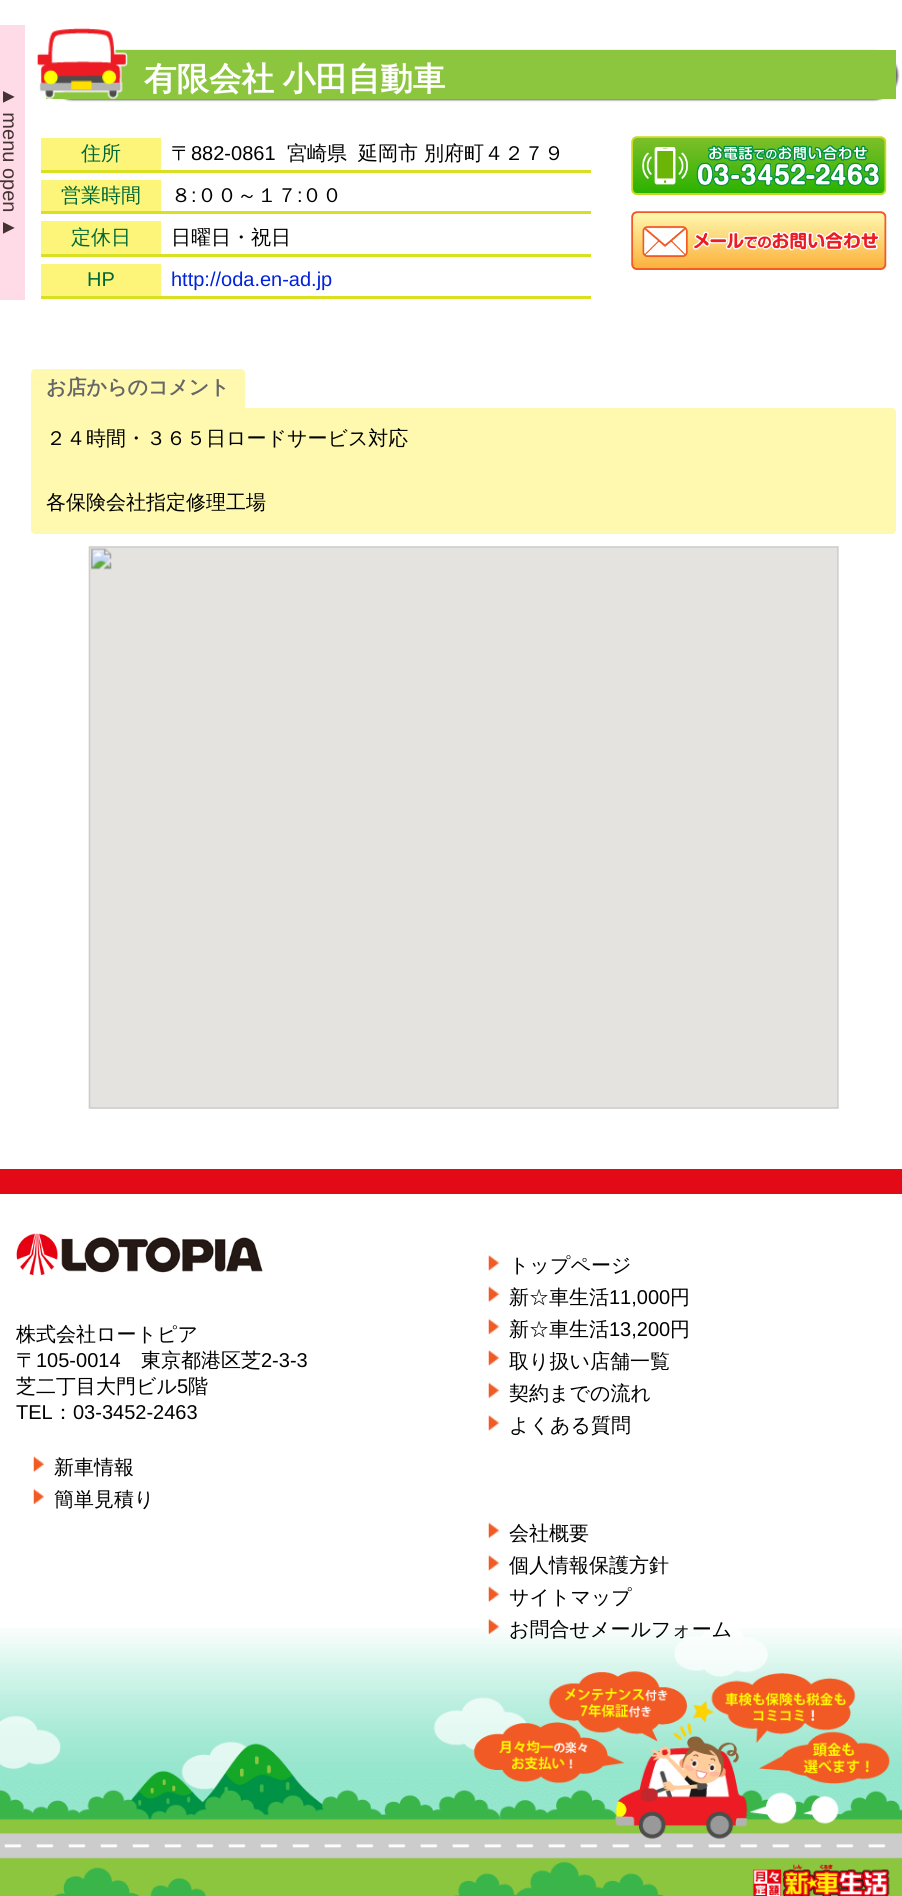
import math
import cairo

surface = cairo.ImageSurface(cairo.FORMAT_RGB24, 902, 1896)
c = cairo.Context(surface)
options = cairo.FontOptions()
options.set_hint_metrics(cairo.HINT_METRICS_OFF)
options.set_hint_style(cairo.HINT_STYLE_NONE)
c.set_font_options(options)
c.set_miter_limit(4)
def C(code):
 c.set_source_rgb(*(v / 255 for v in bytes.fromhex(code[-6:])))
def F(family, size, italic, bold):
 c.select_font_face(family, cairo.FONT_SLANT_ITALIC if italic else cairo.FONT_SLANT_NORMAL, cairo.FONT_WEIGHT_BOLD if bold else cairo.FONT_WEIGHT_NORMAL)
 c.set_font_size(size)
def T(x, y, s):
 c.move_to(x, y)
 c.show_text(s)
def L(x, y, s, letter, word):
 c.move_to(x, y)
 for ch in s:
  c.show_text(ch)
  c.rel_move_to(letter + word * (ch == ' '), 0)
def R(x, y, w, h):
 c.rectangle(x, y, w, h)
 c.fill()
def Q(x, y, w, h, r):
 c.new_sub_path()
 for i, (u, v) in enumerate([(x + w - r, y + h - r), (x + r, y + h - r), (x + r, y + r), (x + w - r, y + r)]):
  c.arc(u, v, r, i * math.pi / 2, (i + 1) * math.pi / 2)
 c.close_path()
def S(x, y, w, h, r, blur, alpha):
 c.push_group_with_content(cairo.CONTENT_ALPHA)
 c.set_operator(cairo.OPERATOR_SOURCE)
 for i in range(15, -16, -2):
  e = blur * i / 6
  if min(w, h) + 2 * e > 0:
   c.set_source_rgba(0, 0, 0, alpha * math.erfc((i - 1) / 8.5) / 2)
   Q(x - e, y - e, w + 2 * e, h + 2 * e, max(0, min(r + e + blur * .6, min(w, h) / 2 + e)))
   c.fill()
 c.mask(c.pop_group())
def I(path, x, y, w, h):
 c.save()
 c.set_source_surface(cairo.ImageSurface.create_from_png(path), x, y)
 c.rectangle(x, y, w, h)
 c.fill()
 c.restore()
C('ffffff')
c.paint()
C('ffdbe7')
R(0,25,25,275)
F('Liberation Sans',20,0,0)
C('443333')
c.save()
c.translate(3,87)
c.rotate(90 * math.pi / 180)
T(0,0,'▲ menu open ▲')
c.restore()
C('666666')
S(48,51,850,49,33,1,1)
C('8cc63f')
c.new_path()
c.move_to(79,50)
c.line_to(896,50)
c.line_to(896,99)
c.line_to(46,99)
c.line_to(46,83)
c.curve_to(46,65,61,50,79,50)
c.close_path()
c.fill()
I('1.png',37,28,91,71)
F('WenQuanYi Zen Hei',32.5,0,1)
C('ffffff')
L(144,90,'有限会社 小田自動車',0,-1)
C('fdf57a')
R(41,138,120,32)
C('d9e021')
R(41,170,550,3)
F('WenQuanYi Zen Hei Medium',20,0,0)
C('006837')
T(81,160,'住所')
C('000000')
T(171,160,'〒')
F('Liberation Sans',20,0,0)
T(191,160,'882-0861')
F('WenQuanYi Zen Hei Medium',20,0,0)
T(287,160,'宮崎県')
T(358,160,'延岡市')
T(424,160,'別府町４２７９')
C('fdf57a')
R(41,180,120,31)
C('d9e021')
R(41,211,550,3)
C('006837')
T(61,202,'営業時間')
C('000000')
T(171,202,'８')
F('Liberation Sans',20,0,0)
T(191,202,':')
F('WenQuanYi Zen Hei Medium',20,0,0)
T(197,202,'００～１７')
F('Liberation Sans',20,0,0)
T(297,202,':')
F('WenQuanYi Zen Hei Medium',20,0,0)
T(302,202,'００')
C('fdf57a')
R(41,221,120,33)
C('d9e021')
R(41,254,550,3)
C('006837')
T(71,244,'定休日')
C('000000')
T(171,244,'日曜日・祝日')
C('fdf57a')
R(41,264,120,32)
C('d9e021')
R(41,296,550,3)
F('Liberation Sans',20,0,0)
C('006837')
T(87,286,'HP')
C('0022dd')
T(171,286,'http://oda.en-ad.jp')
I('2.png',631,136,256,59)
I('3.png',631,211,256,59)
C('fef9af')
c.new_path()
c.move_to(35,369)
c.line_to(241,369)
c.curve_to(243,369,245,371,245,373)
c.line_to(245,408)
c.line_to(31,408)
c.line_to(31,373)
c.curve_to(31,371,33,369,35,369)
c.close_path()
c.fill()
F('WenQuanYi Zen Hei',20,0,1)
C('666666')
T(46,394,'お店からのコメント')
C('fef9af')
c.new_path()
c.move_to(31,408)
c.line_to(892,408)
c.curve_to(894,408,896,410,896,412)
c.line_to(896,530)
c.curve_to(896,532,894,534,892,534)
c.line_to(35,534)
c.curve_to(33,534,31,532,31,530)
c.close_path()
c.fill()
F('WenQuanYi Zen Hei Medium',20,0,0)
C('000000')
T(46,445,'２４時間・３６５日ロードサービス対応')
T(46,509,'各保険会社指定修理工場')
I('4.png',88,546,751,563)
C('e20a17')
R(0,1169,902,25)
I('5.png',0,1628,902,268)
I('6.png',16,1233,247,42)
C('000000')
T(16,1341,'株式会社ロートピア')
T(16,1367,'〒')
F('Liberation Sans',20,0,0)
T(36,1367,'105-0014')
F('WenQuanYi Zen Hei Medium',20,0,0)
T(141,1367,'東京都港区芝')
F('Liberation Sans',20,0,0)
T(261,1367,'2-3-3')
F('WenQuanYi Zen Hei Medium',20,0,0)
T(16,1393,'芝二丁目大門ビル')
F('Liberation Sans',20,0,0)
T(177,1393,'5')
F('WenQuanYi Zen Hei Medium',20,0,0)
T(188,1393,'階')
F('Liberation Sans',20,0,0)
T(16,1419,'TEL')
F('WenQuanYi Zen Hei Medium',20,0,0)
T(53,1419,'：')
F('Liberation Sans',20,0,0)
T(73,1419,'03-3452-2463')
I('7.png',33,1456,11,17)
F('WenQuanYi Zen Hei Medium',20,0,0)
T(54,1474,'新車情報')
I('8.png',33,1488,11,17)
T(54,1506,'簡単見積り')
I('9.png',488,1255,11,17)
T(509,1272,'トップページ')
I('7.png',488,1286,11,17)
T(509,1304,'新☆車生活')
F('Liberation Sans',20,0,0)
T(609,1304,'11,000')
F('WenQuanYi Zen Hei Medium',20,0,0)
T(670,1304,'円')
I('8.png',488,1318,11,17)
T(509,1336,'新☆車生活')
F('Liberation Sans',20,0,0)
T(609,1336,'13,200')
F('WenQuanYi Zen Hei Medium',20,0,0)
T(670,1336,'円')
I('9.png',488,1350,11,17)
T(509,1368,'取り扱い店舗一覧')
I('10.png',488,1382,11,17)
T(509,1400,'契約までの流れ')
I('9.png',488,1415,11,17)
T(509,1432,'よくある質問')
I('10.png',488,1522,11,17)
T(509,1540,'会社概要')
I('11.png',488,1555,11,17)
T(509,1572,'個人情報保護方針')
I('7.png',488,1586,11,17)
T(509,1604,'サイトマップ')
I('12.png',487,1618,12,18)
T(509,1636,'お問合せメールフォーム')
surface.write_to_png('o.png')
